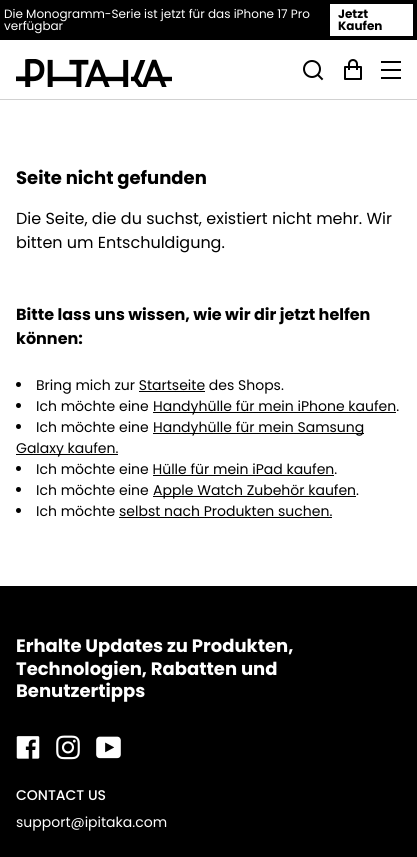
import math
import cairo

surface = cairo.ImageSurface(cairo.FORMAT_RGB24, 417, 857)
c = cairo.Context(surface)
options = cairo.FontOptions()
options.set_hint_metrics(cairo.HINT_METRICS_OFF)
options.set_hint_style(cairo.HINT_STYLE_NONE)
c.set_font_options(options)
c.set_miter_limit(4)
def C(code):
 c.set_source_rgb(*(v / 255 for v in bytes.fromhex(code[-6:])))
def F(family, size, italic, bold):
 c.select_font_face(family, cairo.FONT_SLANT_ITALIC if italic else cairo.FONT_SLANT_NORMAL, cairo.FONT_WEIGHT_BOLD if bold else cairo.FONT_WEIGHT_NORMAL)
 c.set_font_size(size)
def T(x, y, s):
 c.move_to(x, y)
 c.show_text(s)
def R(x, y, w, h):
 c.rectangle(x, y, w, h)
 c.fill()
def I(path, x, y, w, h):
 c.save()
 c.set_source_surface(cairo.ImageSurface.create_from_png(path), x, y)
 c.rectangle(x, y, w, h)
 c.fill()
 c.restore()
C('ffffff')
c.paint()
C('000000')
R(0,0,417,40)
F('Poppins',12,0,0)
C('ffffff')
T(4,18,'Die Monogramm-Serie ist jetzt für das iPhone 17 Pro')
T(4,30,'verfügbar')
R(330,4,83,32)
F('Poppins',12,0,1)
C('000000')
T(338,18,'Jetzt')
T(338,30,'Kaufen')
I('1.png',16,59,156,28)
I('2.png',303,60,21,21)
I('3.png',344,59,18,21)
R(381,69,20,2)
R(381,77,20,2)
R(381,61,20,2)
C('d1d1d1')
R(0,99,417,1)
F('Poppins',18,0,1)
C('000000')
T(16,184,'Seite nicht gefunden')
F('Poppins',16,0,0)
T(16,224,'Die Seite, die du suchst, existiert nicht mehr. Wir')
T(16,248,'bitten um Entschuldigung.')
F('Poppins',16,0,1)
T(16,320,'Bitte lass uns wissen, wie wir dir jetzt helfen')
T(16,344,'können:')
c.new_path()
c.arc(18.5,384.5,2.5,0,2 * math.pi)
c.fill()
F('Poppins',14,0,0)
T(36,390,'Bring mich zur Startseite des Shops.')
R(139,391,66,1)
c.new_path()
c.arc(18.5,405.5,2.5,0,2 * math.pi)
c.fill()
T(36,411,'Ich möchte eine')
R(153,412,243,1)
T(153,411,'Handyhülle für mein iPhone kaufen.')
c.new_path()
c.arc(18.5,426.5,2.5,0,2 * math.pi)
c.fill()
T(36,432,'Ich möchte eine')
R(153,433,211,1)
T(153,432,'Handyhülle für mein Samsung')
R(16,454,102,1)
T(16,453,'Galaxy kaufen.')
c.new_path()
c.arc(18.5,468.5,2.5,0,2 * math.pi)
c.fill()
T(36,474,'Ich möchte eine Hülle für mein iPad kaufen.')
R(153,475,181,1)
c.new_path()
c.arc(18.5,489.5,2.5,0,2 * math.pi)
c.fill()
T(36,495,'Ich möchte eine')
R(153,496,203,1)
T(153,495,'Apple Watch Zubehör kaufen.')
c.new_path()
c.arc(18.5,510.5,2.5,0,2 * math.pi)
c.fill()
T(36,516,'Ich möchte selbst nach Produkten suchen.')
R(119,517,213,1)
R(0,586,417,271)
F('Poppins',18,0,1)
C('ffffff')
T(16,652,'Erhalte Updates zu Produkten,')
T(16,675,'Technologien, Rabatten und')
T(16,697,'Benutzertipps')
I('4.png',16,736,24,23)
I('5.png',56,735,24,25)
I('6.png',96,736,25,23)
F('Poppins Medium',14,0,0)
T(16,800,'CONTACT US')
F('Poppins',14,0,0)
T(16,827,'support@ipitaka.com')
surface.write_to_png('o.png')
